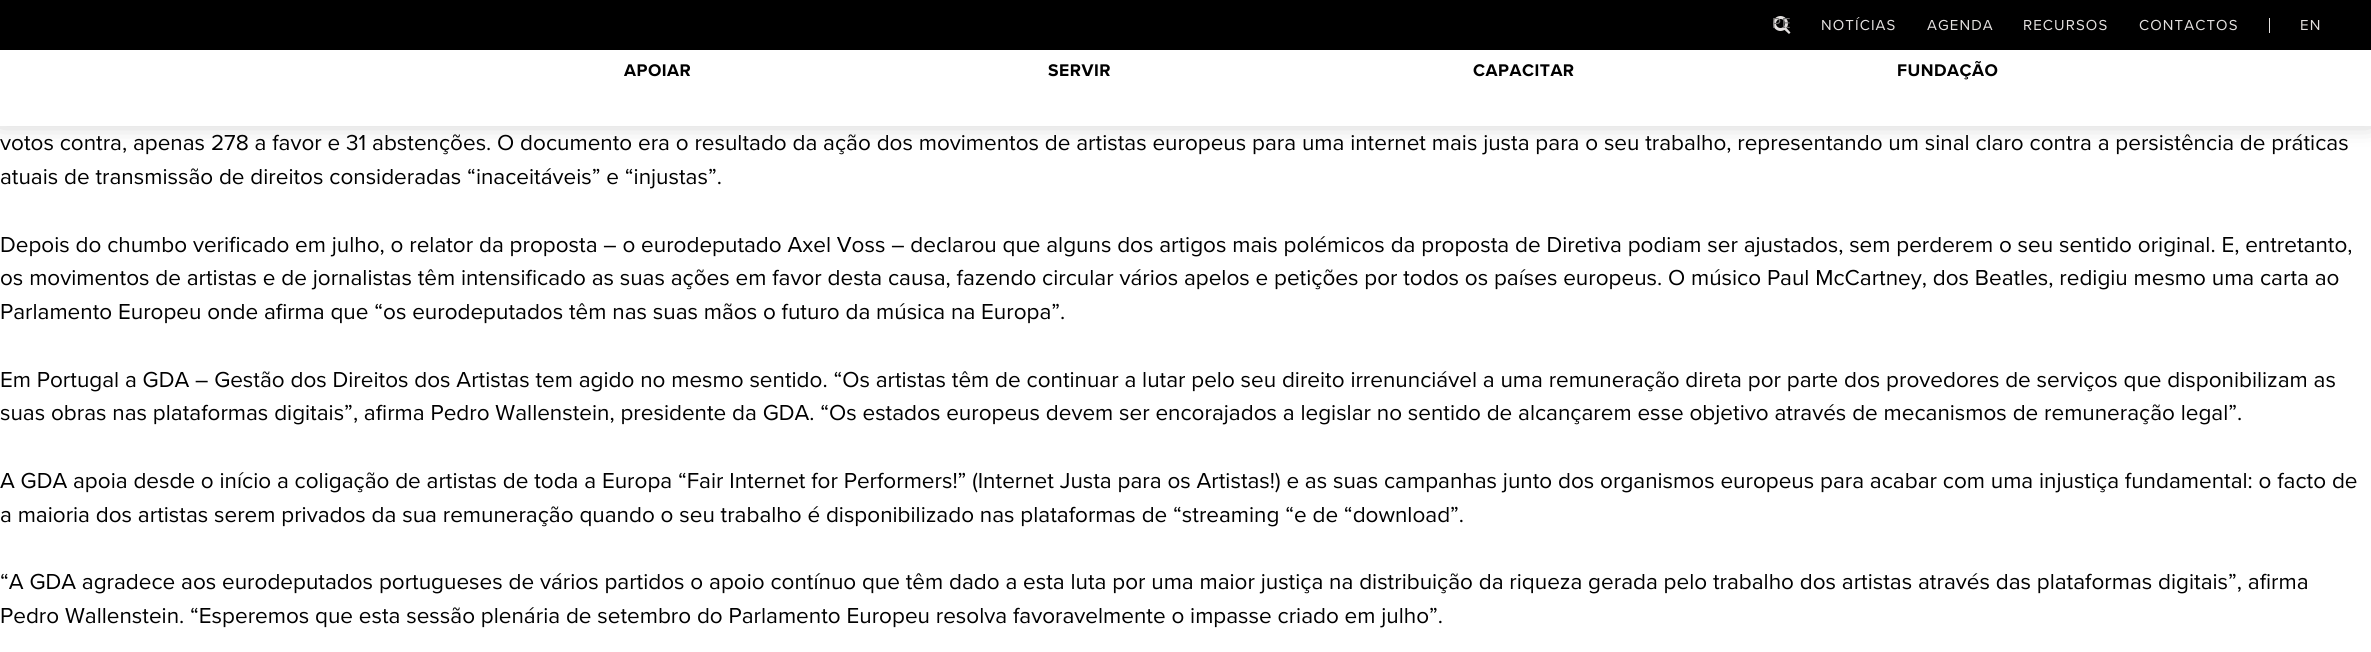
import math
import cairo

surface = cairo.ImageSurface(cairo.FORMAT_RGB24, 2371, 652)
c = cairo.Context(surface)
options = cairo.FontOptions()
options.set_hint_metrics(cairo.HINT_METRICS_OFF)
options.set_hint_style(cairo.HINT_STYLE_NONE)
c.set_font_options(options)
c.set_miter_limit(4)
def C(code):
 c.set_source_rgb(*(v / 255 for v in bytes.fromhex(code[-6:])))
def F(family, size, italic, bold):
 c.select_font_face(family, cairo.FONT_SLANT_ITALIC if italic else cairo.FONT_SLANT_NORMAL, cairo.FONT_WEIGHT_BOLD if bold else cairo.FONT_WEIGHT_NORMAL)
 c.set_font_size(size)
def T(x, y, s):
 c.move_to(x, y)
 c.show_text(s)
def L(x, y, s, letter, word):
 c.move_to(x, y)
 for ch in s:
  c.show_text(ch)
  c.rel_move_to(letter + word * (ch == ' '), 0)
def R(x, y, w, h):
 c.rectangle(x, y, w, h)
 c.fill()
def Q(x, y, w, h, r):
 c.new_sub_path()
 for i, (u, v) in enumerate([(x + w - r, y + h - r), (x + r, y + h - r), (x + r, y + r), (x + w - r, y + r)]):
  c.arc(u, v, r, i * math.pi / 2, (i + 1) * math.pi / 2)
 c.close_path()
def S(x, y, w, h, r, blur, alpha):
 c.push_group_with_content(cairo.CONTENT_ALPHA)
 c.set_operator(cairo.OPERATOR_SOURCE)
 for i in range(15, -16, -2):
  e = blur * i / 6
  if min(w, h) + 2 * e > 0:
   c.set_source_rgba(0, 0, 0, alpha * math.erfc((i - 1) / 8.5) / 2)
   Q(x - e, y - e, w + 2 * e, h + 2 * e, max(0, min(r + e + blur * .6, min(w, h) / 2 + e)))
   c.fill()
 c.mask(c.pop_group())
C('ffffff')
c.paint()
C('000000')
S(0,44,2371,76,0,12.5,.3)
C('000000')
R(0,0,2371,50)
c.arc(1780.5,23.5,6,0,2 * math.pi)
C('e4e1e0')
c.set_line_width(3)
c.stroke()
F('Proxima Nova',15,0,0)
C('6f6e6d')
L(1772,28,'PE',1.1,0)
C('e4e1e0')
c.new_path()
c.move_to(1785.5,27)
c.line_to(1790.5,32.5)
c.line_to(1789,34)
c.line_to(1783.5,29)
c.close_path()
c.fill()
L(1821,30,'NOTÍCIAS',1.1,0)
L(1927,30,'AGENDA',1.1,0)
L(2023,30,'RECURSOS',1.1,0)
L(2139,30,'CONTACTOS',1.1,0)
R(2269,18,1,15)
L(2300,30,'EN',1.1,0)
C('ffffff')
R(0,50,2371,76)
F('Proxima Nova',17.5,0,1)
C('000000')
L(624,76,'APOIAR',.5,0)
L(1048,76,'SERVIR',.5,0)
L(1473,76,'CAPACITAR',.5,0)
L(1897,76,'FUNDAÇÃO',.5,0)
F('Proxima Nova',22.5,0,0)
T(0,150,'votos contra, apenas 278 a favor e 31 abstenções. O documento era o resultado da ação dos movimentos de artistas europeus para uma internet mais justa para o seu trabalho, representando um sinal claro contra a persistência de práticas')
T(0,184,'atuais de transmissão de direitos consideradas “inaceitáveis” e “injustas”.')
T(0,252,'Depois do chumbo verificado em julho, o relator da proposta – o eurodeputado Axel Voss – declarou que alguns dos artigos mais polémicos da proposta de Diretiva podiam ser ajustados, sem perderem o seu sentido original. E, entretanto,')
T(0,285,'os movimentos de artistas e de jornalistas têm intensificado as suas ações em favor desta causa, fazendo circular vários apelos e petições por todos os países europeus. O músico Paul McCartney, dos Beatles, redigiu mesmo uma carta ao')
T(0,319,'Parlamento Europeu onde afirma que “os eurodeputados têm nas suas mãos o futuro da música na Europa”.')
T(0,387,'Em Portugal a GDA – Gestão dos Direitos dos Artistas tem agido no mesmo sentido. “Os artistas têm de continuar a lutar pelo seu direito irrenunciável a uma remuneração direta por parte dos provedores de serviços que disponibilizam as')
T(0,420,'suas obras nas plataformas digitais”, afirma Pedro Wallenstein, presidente da GDA. “Os estados europeus devem ser encorajados a legislar no sentido de alcançarem esse objetivo através de mecanismos de remuneração legal”.')
T(0,488,'A GDA apoia desde o início a coligação de artistas de toda a Europa “Fair Internet for Performers!” (Internet Justa para os Artistas!) e as suas campanhas junto dos organismos europeus para acabar com uma injustiça fundamental: o facto de')
T(0,522,'a maioria dos artistas serem privados da sua remuneração quando o seu trabalho é disponibilizado nas plataformas de “streaming “e de “download”.')
T(0,589,'“A GDA agradece aos eurodeputados portugueses de vários partidos o apoio contínuo que têm dado a esta luta por uma maior justiça na distribuição da riqueza gerada pelo trabalho dos artistas através das plataformas digitais”, afirma')
T(0,623,'Pedro Wallenstein. “Esperemos que esta sessão plenária de setembro do Parlamento Europeu resolva favoravelmente o impasse criado em julho”.')
surface.write_to_png('o.png')
